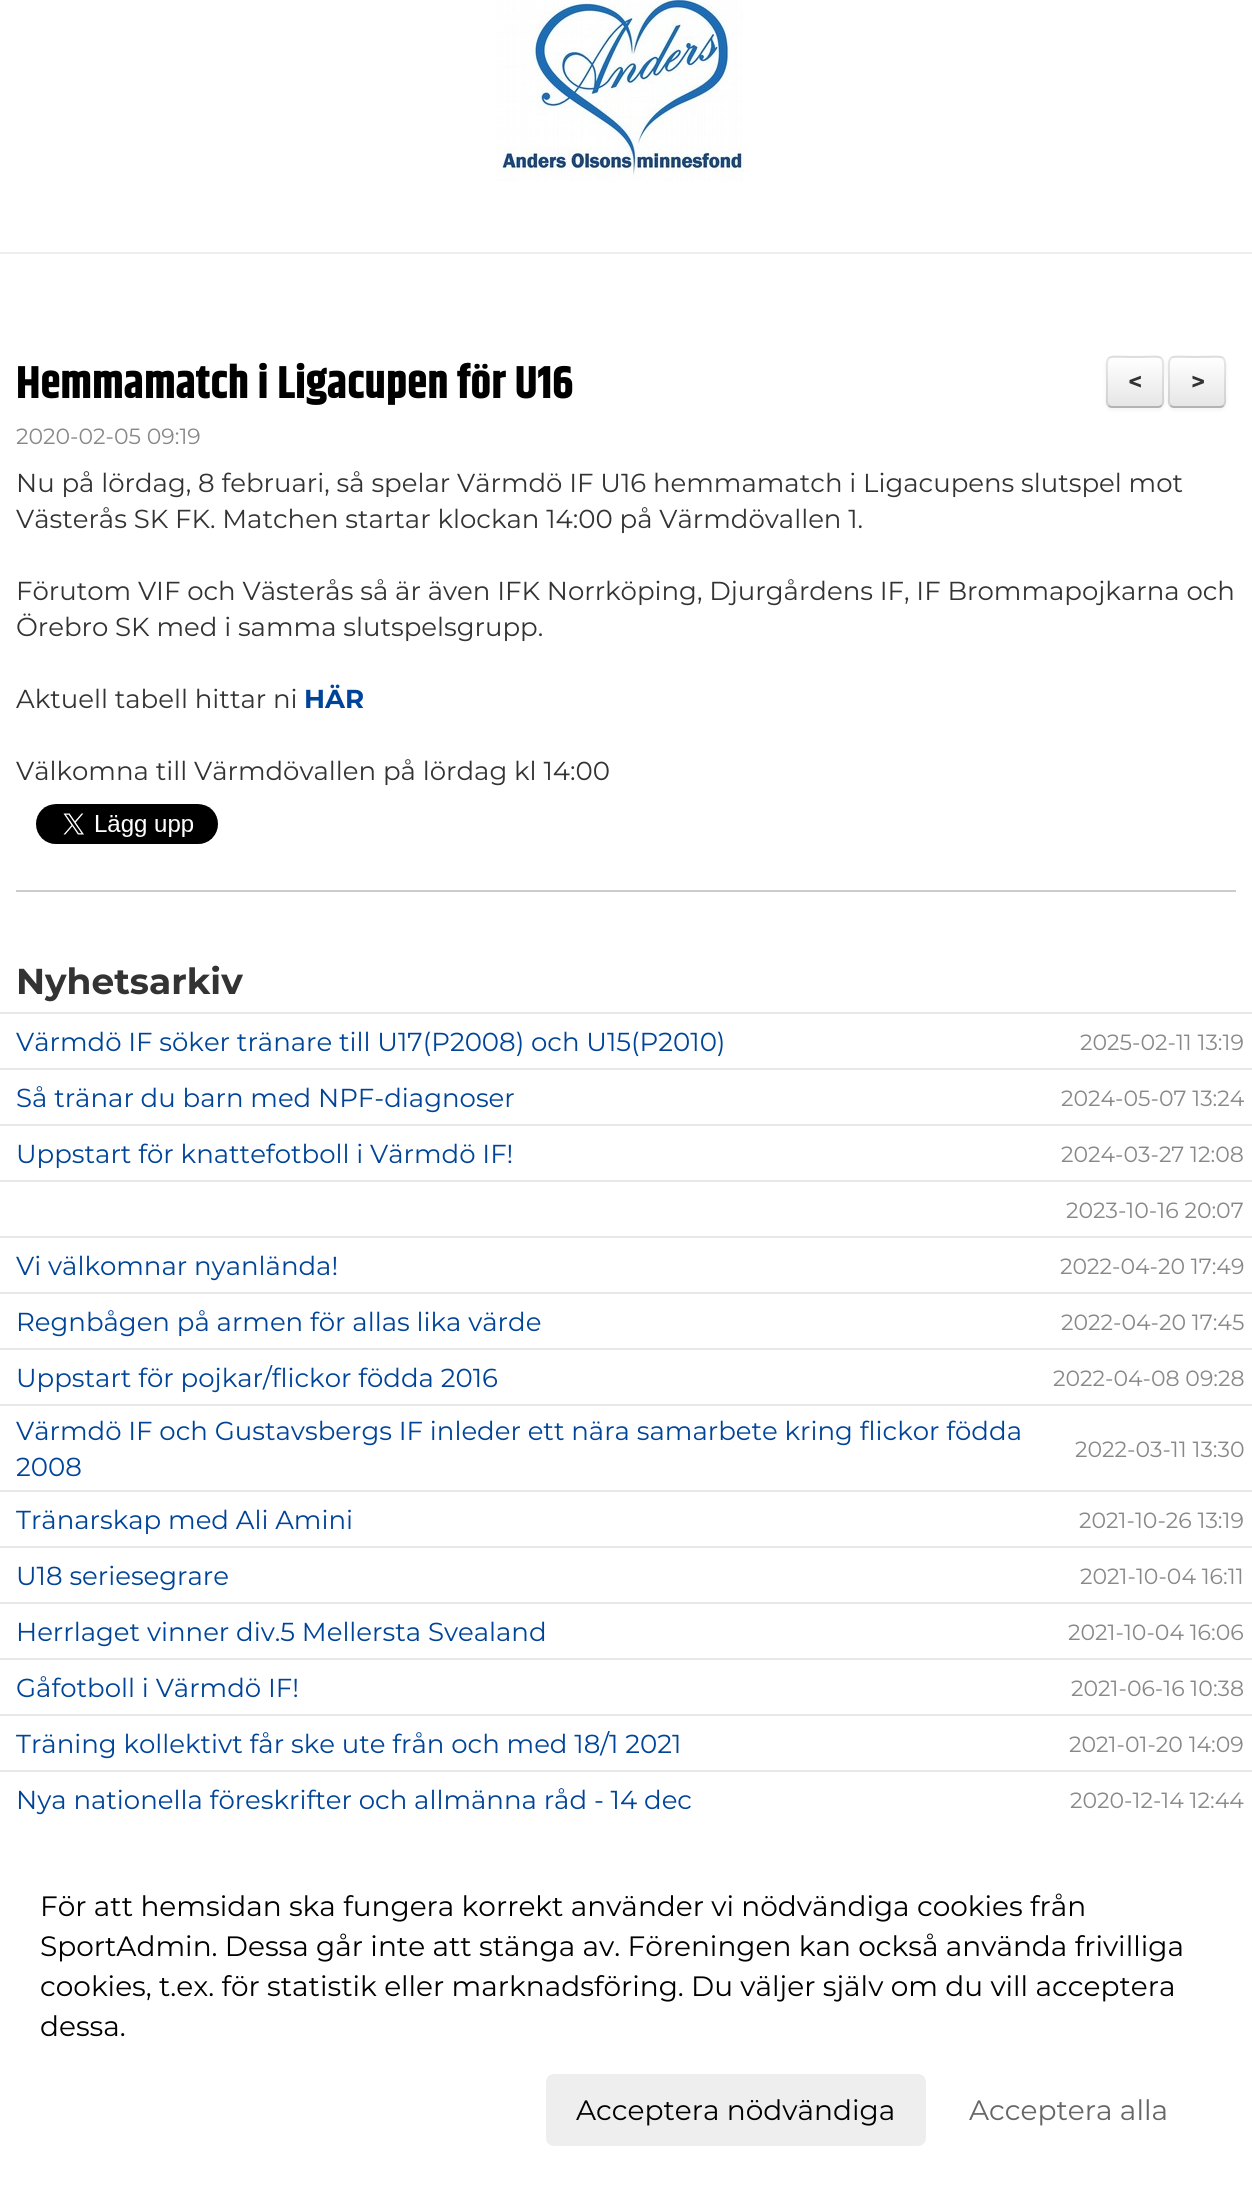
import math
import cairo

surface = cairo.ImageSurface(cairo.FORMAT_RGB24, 1252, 2185)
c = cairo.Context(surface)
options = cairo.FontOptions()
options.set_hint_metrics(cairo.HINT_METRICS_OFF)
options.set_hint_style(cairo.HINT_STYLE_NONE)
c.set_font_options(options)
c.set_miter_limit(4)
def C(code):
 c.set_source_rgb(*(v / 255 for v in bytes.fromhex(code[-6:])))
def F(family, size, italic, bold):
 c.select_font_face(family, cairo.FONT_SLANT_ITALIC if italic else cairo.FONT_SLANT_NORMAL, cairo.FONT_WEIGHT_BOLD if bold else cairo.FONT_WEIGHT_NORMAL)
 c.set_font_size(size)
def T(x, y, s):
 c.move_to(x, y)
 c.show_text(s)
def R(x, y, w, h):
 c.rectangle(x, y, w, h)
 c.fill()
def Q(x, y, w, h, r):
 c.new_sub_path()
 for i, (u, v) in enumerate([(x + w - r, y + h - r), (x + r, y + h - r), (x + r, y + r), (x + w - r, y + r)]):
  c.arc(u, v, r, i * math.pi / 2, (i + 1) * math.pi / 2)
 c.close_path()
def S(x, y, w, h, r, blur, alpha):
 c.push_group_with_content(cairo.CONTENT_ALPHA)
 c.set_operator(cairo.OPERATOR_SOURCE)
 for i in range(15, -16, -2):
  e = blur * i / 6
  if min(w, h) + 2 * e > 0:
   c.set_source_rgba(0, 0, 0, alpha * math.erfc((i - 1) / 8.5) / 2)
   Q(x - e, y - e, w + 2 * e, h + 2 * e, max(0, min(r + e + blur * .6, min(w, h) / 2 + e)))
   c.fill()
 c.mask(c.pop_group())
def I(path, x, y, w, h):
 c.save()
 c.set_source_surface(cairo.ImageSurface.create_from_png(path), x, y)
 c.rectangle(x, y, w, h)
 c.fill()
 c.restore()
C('ffffff')
c.paint()
I('1.png',496,0,248,181)
C('eeeeee')
R(0,252,1252,2)
F('Khand',46,0,1)
C('000000')
T(16,398,'Hemmamatch i Ligacupen för U16')
F('Montserrat',22,0,0)
C('888888')
T(16,444,'2020-02-05 09:19')
F('Montserrat',26,0,0)
C('333333')
T(16,492,'Nu på lördag, 8 februari, så spelar Värmdö IF U16 hemmamatch i Ligacupens slutspel mot')
T(16,528,'Västerås SK FK. Matchen startar klockan 14:00 på Värmdövallen 1.')
T(16,600,'Förutom VIF och Västerås så är även IFK Norrköping, Djurgårdens IF, IF Brommapojkarna och')
T(16,636,'Örebro SK med i samma slutspelsgrupp.')
T(16,708,'Aktuell tabell hittar ni')
F('Montserrat',26,0,1)
C('004499')
T(304,708,'HÄR')
F('Montserrat',26,0,0)
C('333333')
T(16,780,'Välkomna till Värmdövallen på lördag kl 14:00')
I('2.png',36,804,182,40)
C('cccccc')
R(16,890,1220,2)
C('000000')
S(1168,358,58,52,6,2,.05)
C('f5f5f5')
Q(1168,356,58,52,6)
c.fill()
c.save()
Q(1168,356,58,52,6)
c.clip()
gradient = cairo.LinearGradient(1197,358,1197,406)
gradient.add_color_stop_rgba(0,1,1,1,1)
gradient.add_color_stop_rgba(1,0.902,0.902,0.902,1)
c.set_source(gradient)
R(1168,358,58,48)
c.restore()
c.new_path()
c.move_to(1223.5,405.5)
c.curve_to(1222.5,406.5,1221.5,407,1220,407)
c.line_to(1174,407)
c.curve_to(1172.5,407,1171.5,406.5,1170.5,405.5)
C('b3b3b3')
c.stroke()
c.new_path()
c.move_to(1170.5,405.5)
c.curve_to(1168,403,1169,398,1169,395.5)
c.line_to(1169,382)
c.curve_to(1169,351.5,1165,357,1197,357)
c.curve_to(1229,357,1225,351.5,1225,382)
c.line_to(1225,395.5)
c.curve_to(1225,398,1226,403,1223.5,405.5)
c.set_source_rgba(0,0,0,0.1)
c.stroke()
C('000000')
S(1106,358,58,52,6,2,.05)
C('f5f5f5')
Q(1106,356,58,52,6)
c.fill()
c.save()
Q(1106,356,58,52,6)
c.clip()
gradient = cairo.LinearGradient(1135,358,1135,406)
gradient.add_color_stop_rgba(0,1,1,1,1)
gradient.add_color_stop_rgba(1,0.902,0.902,0.902,1)
c.set_source(gradient)
R(1106,358,58,48)
c.restore()
c.new_path()
c.move_to(1161.5,405.5)
c.curve_to(1160.5,406.5,1159.5,407,1158,407)
c.line_to(1112,407)
c.curve_to(1110.5,407,1109.5,406.5,1108.5,405.5)
C('b3b3b3')
c.stroke()
c.new_path()
c.move_to(1108.5,405.5)
c.curve_to(1106,403,1107,398,1107,395.5)
c.line_to(1107,382)
c.curve_to(1107,351.5,1103,357,1135,357)
c.curve_to(1167,357,1163,351.5,1163,382)
c.line_to(1163,395.5)
c.curve_to(1163,398,1164,403,1161.5,405.5)
c.set_source_rgba(0,0,0,0.1)
c.stroke()
F('Montserrat',24,0,1)
C('333333')
T(1128,390,'<')
T(1191,390,'>')
F('Montserrat',36,0,1)
T(16,994,'Nyhetsarkiv')
C('e8e8e8')
R(0,1012,1252,2)
F('Montserrat',26,0,0)
C('004499')
T(16,1051,'Värmdö IF söker tränare till U17(P2008) och U15(P2010)')
F('Montserrat',22,0,0)
C('888888')
T(1080,1050,'2025-02-11 13:19')
C('e8e8e8')
R(0,1068,1252,2)
F('Montserrat',26,0,0)
C('004499')
T(16,1107,'Så tränar du barn med NPF-diagnoser')
F('Montserrat',22,0,0)
C('888888')
T(1061,1106,'2024-05-07 13:24')
C('e8e8e8')
R(0,1124,1252,2)
F('Montserrat',26,0,0)
C('004499')
T(16,1163,'Uppstart för knattefotboll i Värmdö IF!')
F('Montserrat',22,0,0)
C('888888')
T(1061,1162,'2024-03-27 12:08')
C('e8e8e8')
R(0,1180,1252,2)
C('888888')
T(1066,1218,'2023-10-16 20:07')
C('e8e8e8')
R(0,1236,1252,2)
F('Montserrat',26,0,0)
C('004499')
T(16,1275,'Vi välkomnar nyanlända!')
F('Montserrat',22,0,0)
C('888888')
T(1060,1274,'2022-04-20 17:49')
C('e8e8e8')
R(0,1292,1252,2)
F('Montserrat',26,0,0)
C('004499')
T(16,1331,'Regnbågen på armen för allas lika värde')
F('Montserrat',22,0,0)
C('888888')
T(1061,1330,'2022-04-20 17:45')
C('e8e8e8')
R(0,1348,1252,2)
F('Montserrat',26,0,0)
C('004499')
T(16,1387,'Uppstart för pojkar/flickor födda 2016')
F('Montserrat',22,0,0)
C('888888')
T(1053,1386,'2022-04-08 09:28')
C('e8e8e8')
R(0,1404,1252,2)
F('Montserrat',26,0,0)
C('004499')
T(16,1440,'Värmdö IF och Gustavsbergs IF inleder ett nära samarbete kring flickor födda')
T(16,1476,'2008')
F('Montserrat',22,0,0)
C('888888')
T(1075,1457,'2022-03-11 13:30')
C('e8e8e8')
R(0,1490,1252,2)
F('Montserrat',26,0,0)
C('004499')
T(16,1529,'Tränarskap med Ali Amini')
F('Montserrat',22,0,0)
C('888888')
T(1079,1528,'2021-10-26 13:19')
C('e8e8e8')
R(0,1546,1252,2)
F('Montserrat',26,0,0)
C('004499')
T(16,1585,'U18 seriesegrare')
F('Montserrat',22,0,0)
C('888888')
T(1080,1584,'2021-10-04 16:11')
C('e8e8e8')
R(0,1602,1252,2)
F('Montserrat',26,0,0)
C('004499')
T(16,1641,'Herrlaget vinner div.5 Mellersta Svealand')
F('Montserrat',22,0,0)
C('888888')
T(1068,1640,'2021-10-04 16:06')
C('e8e8e8')
R(0,1658,1252,2)
F('Montserrat',26,0,0)
C('004499')
T(16,1697,'Gåfotboll i Värmdö IF!')
F('Montserrat',22,0,0)
C('888888')
T(1071,1696,'2021-06-16 10:38')
C('e8e8e8')
R(0,1714,1252,2)
F('Montserrat',26,0,0)
C('004499')
T(16,1753,'Träning kollektivt får ske ute från och med 18/1 2021')
F('Montserrat',22,0,0)
C('888888')
T(1069,1752,'2021-01-20 14:09')
C('e8e8e8')
R(0,1770,1252,2)
F('Montserrat',26,0,0)
C('004499')
T(16,1809,'Nya nationella föreskrifter och allmänna råd - 14 dec')
F('Montserrat',22,0,0)
C('888888')
T(1070,1808,'2020-12-14 12:44')
F('Montserrat',28,0,0)
C('000000')
T(40,1916,'För att hemsidan ska fungera korrekt använder vi nödvändiga cookies från')
T(40,1956,'SportAdmin. Dessa går inte att stänga av. Föreningen kan också använda frivilliga')
T(40,1996,'cookies, t.ex. för statistik eller marknadsföring. Du väljer själv om du vill acceptera')
T(40,2036,'dessa.')
C('eeeeee')
Q(546,2074,380,72,8)
c.fill()
C('000000')
T(576,2120,'Acceptera nödvändiga')
C('666666')
T(969,2120,'Acceptera alla')
surface.write_to_png('o.png')
